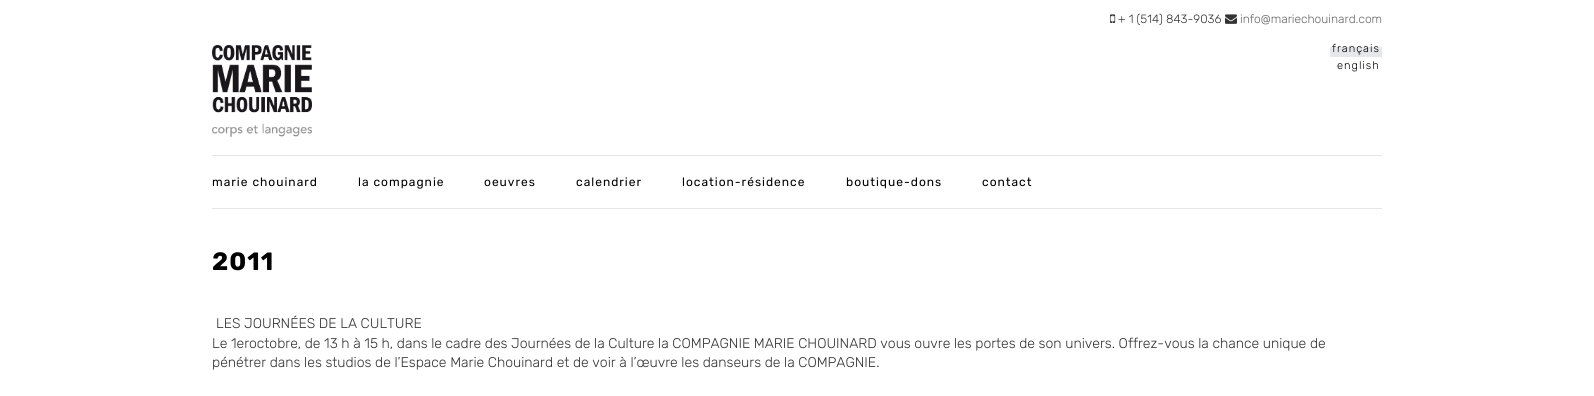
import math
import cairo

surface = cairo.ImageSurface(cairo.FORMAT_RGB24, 1594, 396)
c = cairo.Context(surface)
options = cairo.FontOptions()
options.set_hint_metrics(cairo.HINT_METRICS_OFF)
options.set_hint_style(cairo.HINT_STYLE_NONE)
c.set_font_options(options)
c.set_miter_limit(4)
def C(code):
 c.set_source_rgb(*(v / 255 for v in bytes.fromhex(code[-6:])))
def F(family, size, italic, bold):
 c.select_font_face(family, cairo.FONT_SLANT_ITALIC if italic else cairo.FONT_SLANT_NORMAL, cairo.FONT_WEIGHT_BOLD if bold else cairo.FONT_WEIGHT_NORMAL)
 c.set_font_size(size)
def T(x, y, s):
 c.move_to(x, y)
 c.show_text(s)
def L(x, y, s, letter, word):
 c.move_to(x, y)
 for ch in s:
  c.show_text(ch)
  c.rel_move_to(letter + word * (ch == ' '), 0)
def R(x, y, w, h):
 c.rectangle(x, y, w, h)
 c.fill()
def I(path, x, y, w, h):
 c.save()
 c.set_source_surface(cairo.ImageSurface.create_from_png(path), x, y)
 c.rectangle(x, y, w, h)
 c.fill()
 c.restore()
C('ffffff')
c.paint()
I('1.png',1110,14,6,9)
F('Rubik Light',12,0,0)
C('333333')
T(1118,23,'+ 1 (514) 843-9036')
I('2.png',1225,14,12,10)
C('666666')
T(1240,23,'info@mariechouinard.com')
I('3.png',212,45,100,93)
C('e5e7ea')
R(1330,47,52,10)
F('Rubik Light',11,0,0)
C('000000')
L(1332,52,'français',1,0)
L(1337,69,'english',1,0)
C('e6e6e6')
R(212,155,1170,1)
R(212,208,1170,1)
F('Rubik',12,0,0)
C('000000')
L(212,186,'marie chouinard',1,0)
L(358,186,'la compagnie',1,0)
L(484,186,'oeuvres',1,0)
L(576,186,'calendrier',1,0)
L(682,186,'location-résidence',1,0)
L(846,186,'boutique-dons',1,0)
L(982,186,'contact',1,0)
F('Rubik',25,0,1)
L(212,270,'2011',1,0)
F('Rubik Light',14,0,0)
C('333333')
T(216,328,'LES JOURNÉES DE LA CULTURE')
T(212,348,'Le 1eroctobre, de 13 h à 15 h, dans le cadre des Journées de la Culture la COMPAGNIE MARIE CHOUINARD vous ouvre les portes de son univers. Offrez-vous la chance unique de')
T(212,367,'pénétrer dans les studios de l’Espace Marie Chouinard et de voir à l’œuvre les danseurs de la COMPAGNIE.')
surface.write_to_png('o.png')
